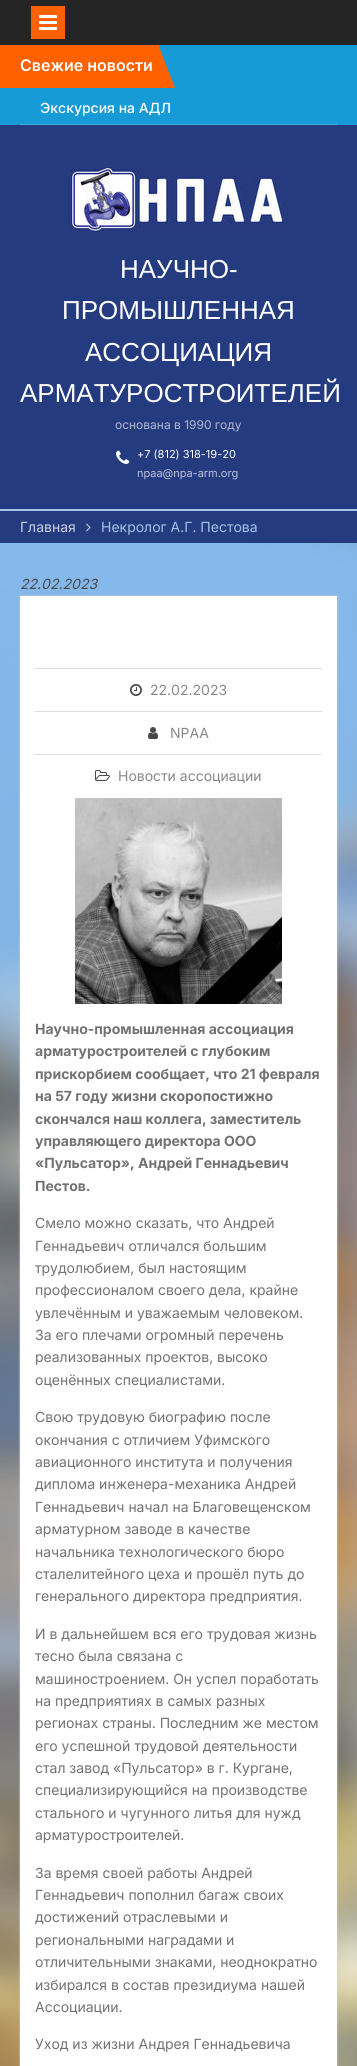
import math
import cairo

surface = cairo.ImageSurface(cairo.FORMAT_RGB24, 357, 2066)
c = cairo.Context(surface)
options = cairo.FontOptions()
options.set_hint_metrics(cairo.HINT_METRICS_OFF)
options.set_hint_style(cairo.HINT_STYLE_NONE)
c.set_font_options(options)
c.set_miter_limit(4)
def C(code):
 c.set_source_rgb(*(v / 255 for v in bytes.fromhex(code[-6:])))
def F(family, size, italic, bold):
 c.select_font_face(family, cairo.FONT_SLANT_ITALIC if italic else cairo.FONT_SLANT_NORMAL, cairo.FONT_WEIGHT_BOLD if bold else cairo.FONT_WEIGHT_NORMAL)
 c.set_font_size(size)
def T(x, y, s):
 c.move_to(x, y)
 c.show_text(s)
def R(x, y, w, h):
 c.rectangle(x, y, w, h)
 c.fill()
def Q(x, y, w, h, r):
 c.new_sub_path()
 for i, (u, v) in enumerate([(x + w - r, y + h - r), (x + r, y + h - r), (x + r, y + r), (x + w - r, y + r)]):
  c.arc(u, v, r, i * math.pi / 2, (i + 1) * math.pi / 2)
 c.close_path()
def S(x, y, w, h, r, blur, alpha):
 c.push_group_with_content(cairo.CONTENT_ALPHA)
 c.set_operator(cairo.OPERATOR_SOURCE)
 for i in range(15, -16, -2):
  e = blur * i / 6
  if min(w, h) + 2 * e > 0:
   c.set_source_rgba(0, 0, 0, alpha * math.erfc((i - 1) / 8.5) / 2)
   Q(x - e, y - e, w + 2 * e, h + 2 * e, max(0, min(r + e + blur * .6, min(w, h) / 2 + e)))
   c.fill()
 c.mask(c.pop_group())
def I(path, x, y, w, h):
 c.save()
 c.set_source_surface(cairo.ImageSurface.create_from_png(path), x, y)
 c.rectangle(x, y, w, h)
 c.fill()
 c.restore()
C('ffffff')
c.paint()
I('1.png',0,543,357,1523)
C('242424')
R(0,0,357,45)
C('ff6000')
R(31,6,34,33)
I('2.png',39,15,18,15)
C('179bd7')
R(0,45,357,80)
C('ff6000')
R(0,45,159,43)
F('Inter SemiBold',16,0,0)
C('ffffff')
T(20,71,'Свежие новости')
C('ff6000')
c.new_path()
c.move_to(159,88)
c.line_to(159,47)
c.line_to(175,88)
c.close_path()
c.fill()
F('Inter Medium',14,0,0)
C('ffffff')
T(40,113,'Экскурсия на АДЛ')
C('45afdf')
R(20,124,317,1)
C('253b80')
R(0,125,357,384)
I('3.png',69,162,216,70)
F('Liberation Sans',26,0,0)
C('ffffff')
T(120,278,'НАУЧНО-')
T(62,319,'ПРОМЫШЛЕННАЯ')
T(85,361,'АССОЦИАЦИЯ')
T(20,402,'АРМАТУРОСТРОИТЕЛЕЙ')
F('Inter',12,0,0)
C('b1b8d1')
T(115,429,'основана в 1990 году')
I('4.png',116,450,14,14)
F('Inter',11,0,0)
C('ffffff')
T(137,458,'+7 (812) 318-19-20')
C('bec4d9')
T(137,477,'npaa@npa-arm.org')
C('253b80')
R(0,511,357,32)
C('a0c5e8')
R(0,509,357,2)
F('Inter',14,0,0)
C('cbd0e1')
T(20,532,'Главная')
I('5.png',86,523,5,9)
C('a0c5e8')
T(101,532,'Некролог А.Г. Пестова')
F('Inter',14,1,0)
C('484848')
T(20,589,'22.02.2023')
C('cfcfcf')
S(20,596,317,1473,0,1,1)
C('ffffff')
R(20,596,317,1470)
C('dddddd')
R(35,668,287,1)
I('6.png',130,684,12,12)
F('Inter',14,0,0)
C('888888')
T(150,695,'22.02.2023')
C('dddddd')
R(35,711,287,1)
I('7.png',148,727,10,12)
C('888888')
T(170,738,'NPAA')
C('dddddd')
R(35,754,287,1)
I('8.png',95,770,15,11)
C('888888')
T(118,781,'Новости ассоциации')
I('9.png',75,798,207,206)
F('Inter',14,0,1)
C('727272')
T(35,1034,'Научно-промышленная ассоциация')
T(35,1056,'арматуростроителей с глубоким')
T(35,1079,'прискорбием сообщает, что 21 февраля')
T(35,1101,'на 57 году жизни скоропостижно')
T(35,1124,'скончался наш коллега, заместитель')
T(35,1146,'управляющего директора ООО')
T(35,1168,'«Пульсатор», Андрей Геннадьевич')
T(35,1191,'Пестов.')
F('Inter',14,0,0)
T(35,1228,'Смело можно сказать, что Андрей')
T(35,1251,'Геннадьевич отличался большим')
T(35,1273,'трудолюбием, был настоящим')
T(35,1295,'профессионалом своего дела, крайне')
T(35,1318,'увлечённым и уважаемым человеком.')
T(35,1340,'За его плечами огромный перечень')
T(35,1362,'реализованных проектов, высоко')
T(35,1385,'оценённых специалистами.')
T(35,1422,'Свою трудовую биографию после')
T(35,1445,'окончания с отличием Уфимского')
T(35,1467,'авиационного института и получения')
T(35,1489,'диплома инженера-механика Андрей')
T(35,1512,'Геннадьевич начал на Благовещенском')
T(35,1534,'арматурном заводе в качестве')
T(35,1557,'начальника технологического бюро')
T(35,1579,'сталелитейного цеха и прошёл путь до')
T(35,1601,'генерального директора предприятия.')
T(35,1639,'И в дальнейшем вся его трудовая жизнь')
T(35,1661,'тесно была связана с')
T(35,1684,'машиностроением. Он успел поработать')
T(35,1706,'на предприятиях в самых разных')
T(35,1728,'регионах страны. Последним же местом')
T(35,1751,'его успешной трудовой деятельности')
T(35,1773,'стал завод «Пульсатор» в г. Кургане,')
T(35,1795,'специализирующийся на производстве')
T(35,1818,'стального и чугунного литья для нужд')
T(35,1840,'арматуростроителей.')
T(35,1878,'За время своей работы Андрей')
T(35,1900,'Геннадьевич пополнил багаж своих')
T(35,1922,'достижений отраслевыми и')
T(35,1945,'региональными наградами и')
T(35,1967,'отличительными знаками, неоднократно')
T(35,1990,'избирался в состав президиума нашей')
T(35,2012,'Ассоциации.')
T(35,2049,'Уход из жизни Андрея Геннадьевича')
surface.write_to_png('o.png')
